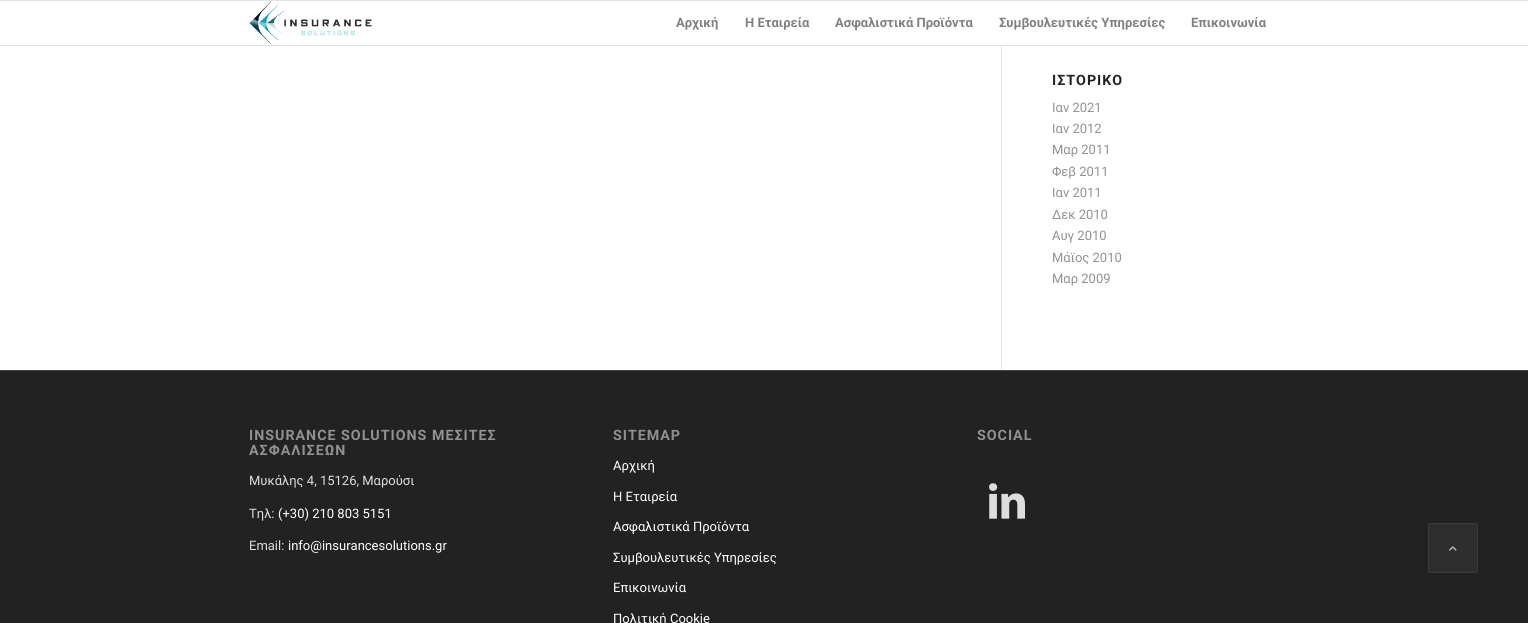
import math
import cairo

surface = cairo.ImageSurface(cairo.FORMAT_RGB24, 1528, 623)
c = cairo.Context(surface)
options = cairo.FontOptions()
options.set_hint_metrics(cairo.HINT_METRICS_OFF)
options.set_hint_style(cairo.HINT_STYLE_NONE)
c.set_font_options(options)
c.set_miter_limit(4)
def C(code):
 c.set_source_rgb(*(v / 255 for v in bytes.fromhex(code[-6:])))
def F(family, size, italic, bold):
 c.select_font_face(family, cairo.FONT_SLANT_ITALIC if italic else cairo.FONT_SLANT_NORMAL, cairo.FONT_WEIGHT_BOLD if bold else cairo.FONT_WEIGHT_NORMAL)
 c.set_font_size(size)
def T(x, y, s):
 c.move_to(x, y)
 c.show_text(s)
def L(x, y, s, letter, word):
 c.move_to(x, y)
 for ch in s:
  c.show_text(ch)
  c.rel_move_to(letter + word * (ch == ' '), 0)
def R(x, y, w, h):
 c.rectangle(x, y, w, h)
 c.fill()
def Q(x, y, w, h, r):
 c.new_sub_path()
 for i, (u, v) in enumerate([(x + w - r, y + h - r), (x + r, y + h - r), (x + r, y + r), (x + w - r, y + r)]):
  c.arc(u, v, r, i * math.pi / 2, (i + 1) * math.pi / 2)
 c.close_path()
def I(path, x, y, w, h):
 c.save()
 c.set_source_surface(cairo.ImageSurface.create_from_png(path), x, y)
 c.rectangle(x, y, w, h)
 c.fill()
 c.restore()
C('ffffff')
c.paint()
C('e1e1e1')
R(0,0,1528,1)
R(0,45,1528,1)
I('1.png',249,1,123,44)
F('Roboto',13,0,1)
C('808080')
T(676,27,'Αρχική')
T(745,27,'Η Εταιρεία')
T(835,27,'Ασφαλιστικά Προϊόντα')
T(999,27,'Συμβουλευτικές Υπηρεσίες')
T(1191,27,'Επικοινωνία')
C('e1e1e1')
R(1001,46,1,324)
F('Roboto',14.25,0,1)
C('222222')
L(1052,85,'ΙΣΤΟΡΙΚΟ',1,0)
F('Roboto',13,0,0)
C('919191')
T(1052,112,'Ιαν 2021')
T(1052,133,'Ιαν 2012')
T(1052,154,'Μαρ 2011')
T(1052,176,'Φεβ 2011')
T(1052,197,'Ιαν 2011')
T(1052,219,'Δεκ 2010')
T(1052,240,'Αυγ 2010')
T(1052,262,'Μάϊος 2010')
T(1052,283,'Μαρ 2009')
C('222222')
R(0,371,1528,252)
C('444444')
R(0,370,1528,1)
F('Roboto',14.25,0,1)
C('919191')
L(249,440,'INSURANCE SOLUTIONS ΜΕΣΙΤΕΣ',1,0)
L(249,455,'ΑΣΦΑΛΙΣΕΩΝ',1,0)
F('Roboto',13,0,0)
C('dddddd')
T(249,485,'Μυκάλης 4, 15126, Μαρούσι')
T(249,518,'Τηλ:')
C('ffffff')
T(278,518,'(+30) 210 803 5151')
C('dddddd')
T(249,550,'Email:')
C('ffffff')
T(288,550,'info@insurancesolutions.gr')
F('Roboto',14.25,0,1)
C('919191')
L(613,440,'SITEMAP',1,0)
F('Roboto',13,0,0)
C('ffffff')
T(613,470,'Αρχική')
T(613,501,'Η Εταιρεία')
T(613,531,'Ασφαλιστικά Προϊόντα')
T(613,562,'Συμβουλευτικές Υπηρεσίες')
T(613,592,'Επικοινωνία')
T(613,623,'Πολιτική Cookie')
F('Roboto',14.25,0,1)
C('919191')
L(977,440,'SOCIAL',1,0)
I('2.png',989,483,36,36)
C('2e2e2e')
Q(1428.5,523.5,49,49,1.5)
c.fill_preserve()
C('3a3a3a')
c.set_line_width(1)
c.stroke()
I('3.png',1449,546,8,5)
surface.write_to_png('o.png')
